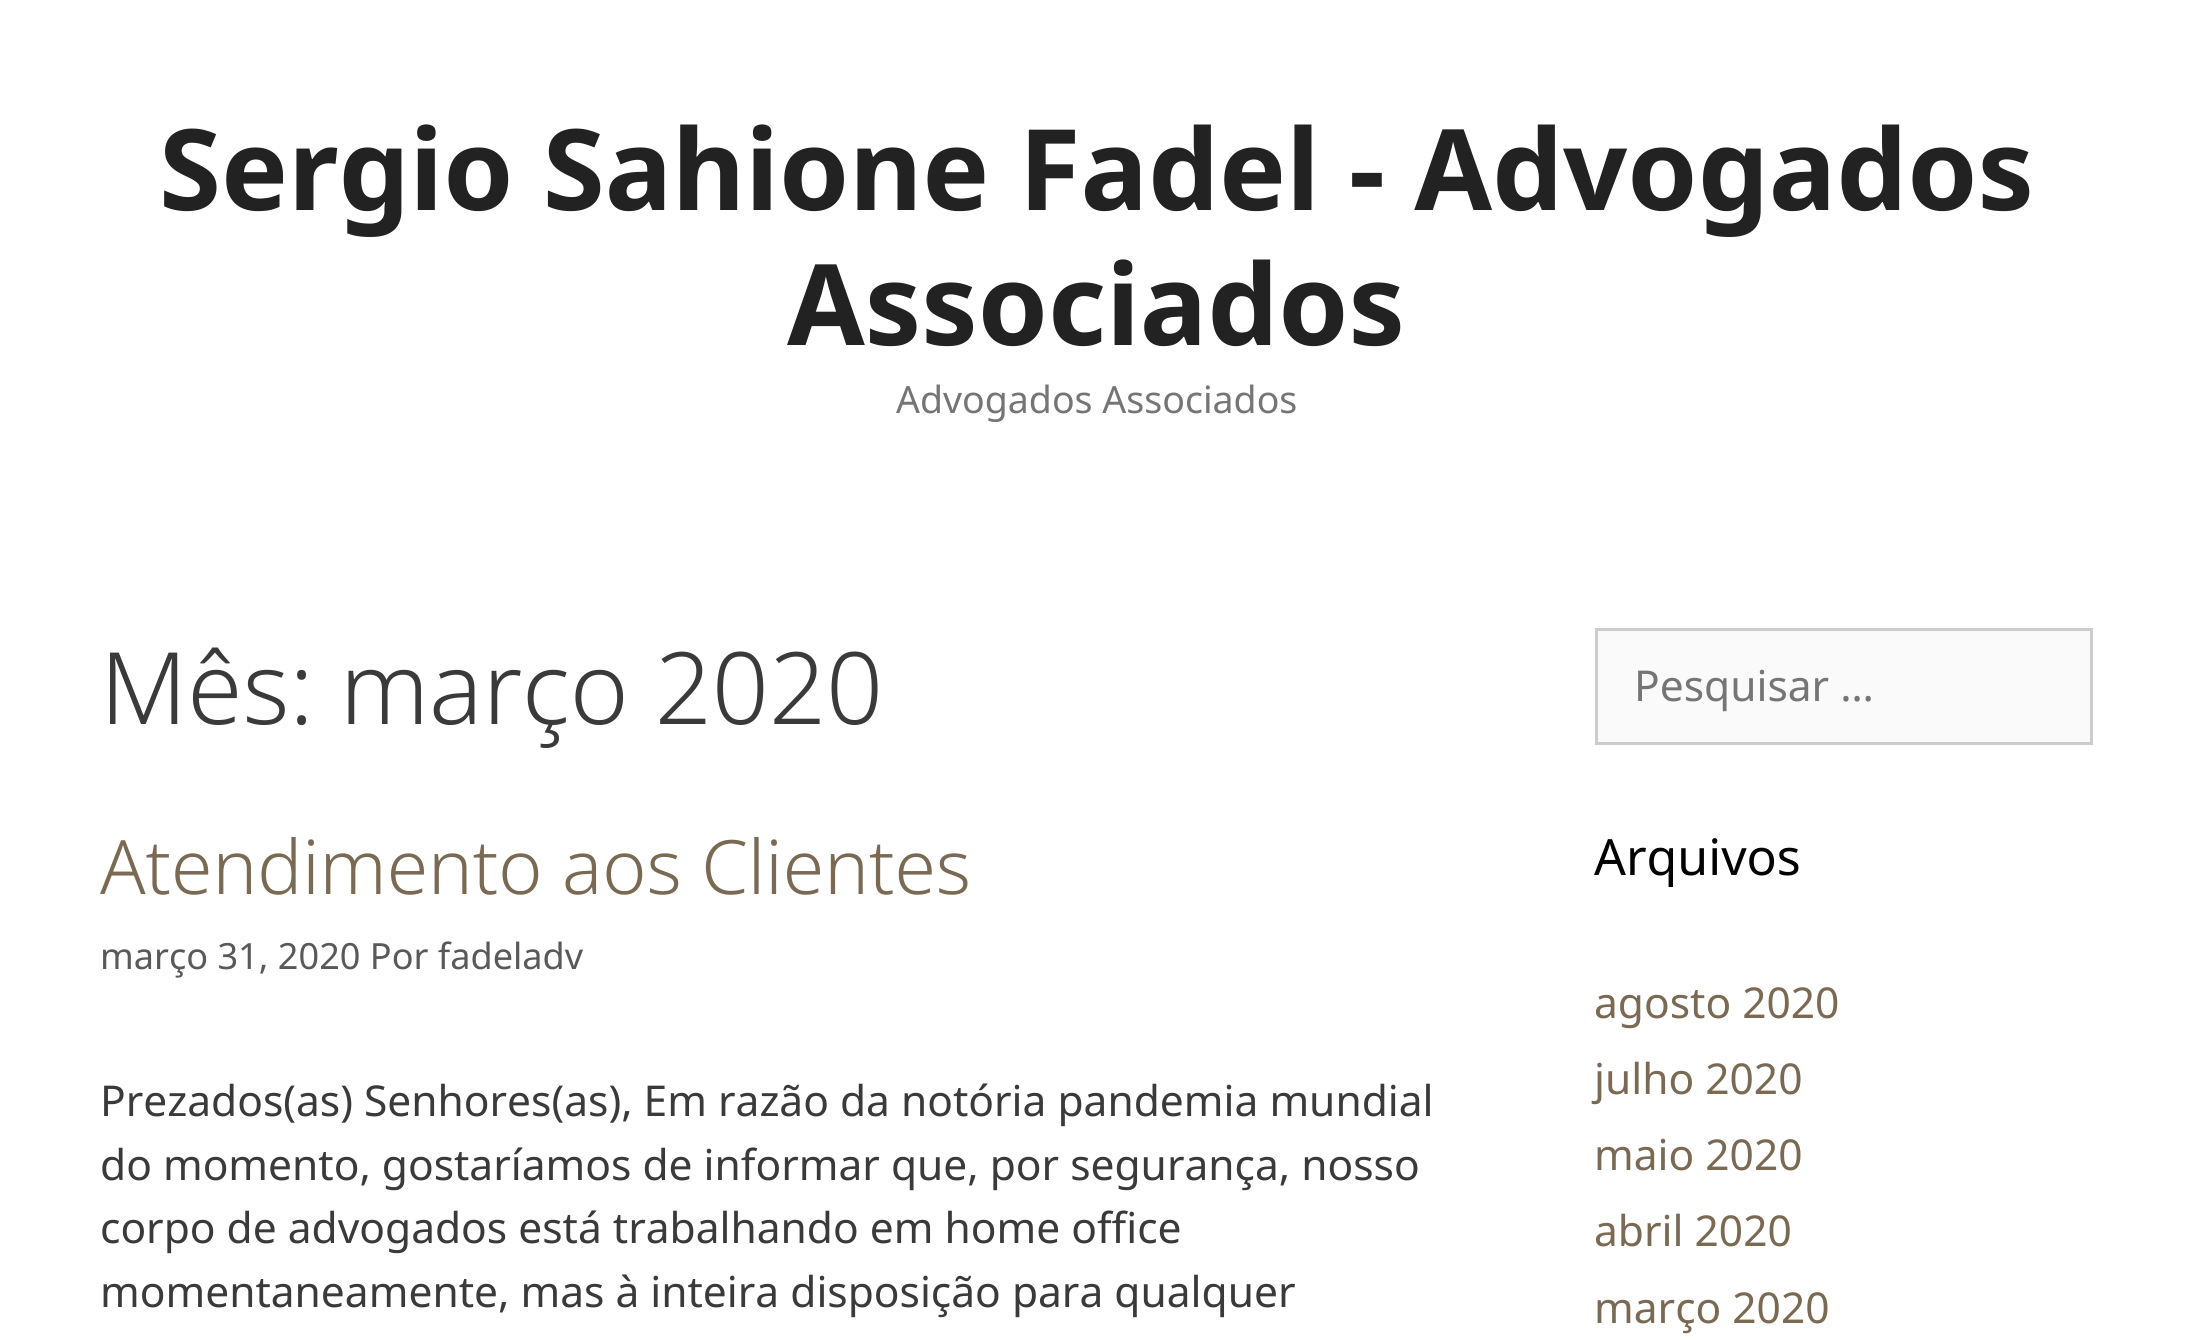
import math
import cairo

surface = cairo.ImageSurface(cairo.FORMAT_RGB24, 2191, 1340)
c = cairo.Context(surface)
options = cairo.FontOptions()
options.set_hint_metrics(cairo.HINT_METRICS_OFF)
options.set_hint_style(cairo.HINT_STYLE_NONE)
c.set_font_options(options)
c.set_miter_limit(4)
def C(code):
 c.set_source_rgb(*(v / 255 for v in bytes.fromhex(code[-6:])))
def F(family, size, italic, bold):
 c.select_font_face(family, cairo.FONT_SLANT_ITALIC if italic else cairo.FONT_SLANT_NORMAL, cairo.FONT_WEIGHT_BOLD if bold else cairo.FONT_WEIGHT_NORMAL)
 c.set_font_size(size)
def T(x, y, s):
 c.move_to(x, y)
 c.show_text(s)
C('ffffff')
c.paint()
F('Noto Sans',112.5,0,1)
C('222222')
T(159,210,'Sergio Sahione Fadel - Advogados')
T(787,345,'Associados')
F('Noto Sans',37.5,0,0)
C('757575')
T(896,413,'Advogados Associados')
F('Noto Sans Light',100,0,0)
C('3a3a3a')
T(100,724,'Mês: março 2020')
F('Noto Sans Light',75,0,0)
C('7a6a53')
T(100,894,'Atendimento aos Clientes')
F('Noto Sans',36.1,0,0)
C('595959')
T(100,969,'março 31, 2020 Por fadeladv')
F('Noto Sans',42.5,0,0)
C('3a3a3a')
T(100,1116,'Prezados(as) Senhores(as), Em razão da notória pandemia mundial')
T(100,1180,'do momento, gostaríamos de informar que, por segurança, nosso')
T(100,1243,'corpo de advogados está trabalhando em home office')
T(100,1307,'momentaneamente, mas à inteira disposição para qualquer')
C('fafafa')
c.rectangle(1596.5,629.5,495,114)
c.fill_preserve()
C('cccccc')
c.set_line_width(3)
c.stroke()
C('757575')
T(1634,701,'Pesquisar …')
F('Noto Sans',50,0,0)
C('000000')
T(1594,875,'Arquivos')
F('Noto Sans',42.5,0,0)
C('7a6a53')
T(1594,1018,'agosto 2020')
T(1594,1094,'julho 2020')
T(1594,1170,'maio 2020')
T(1594,1246,'abril 2020')
T(1594,1323,'março 2020')
surface.write_to_png('o.png')
